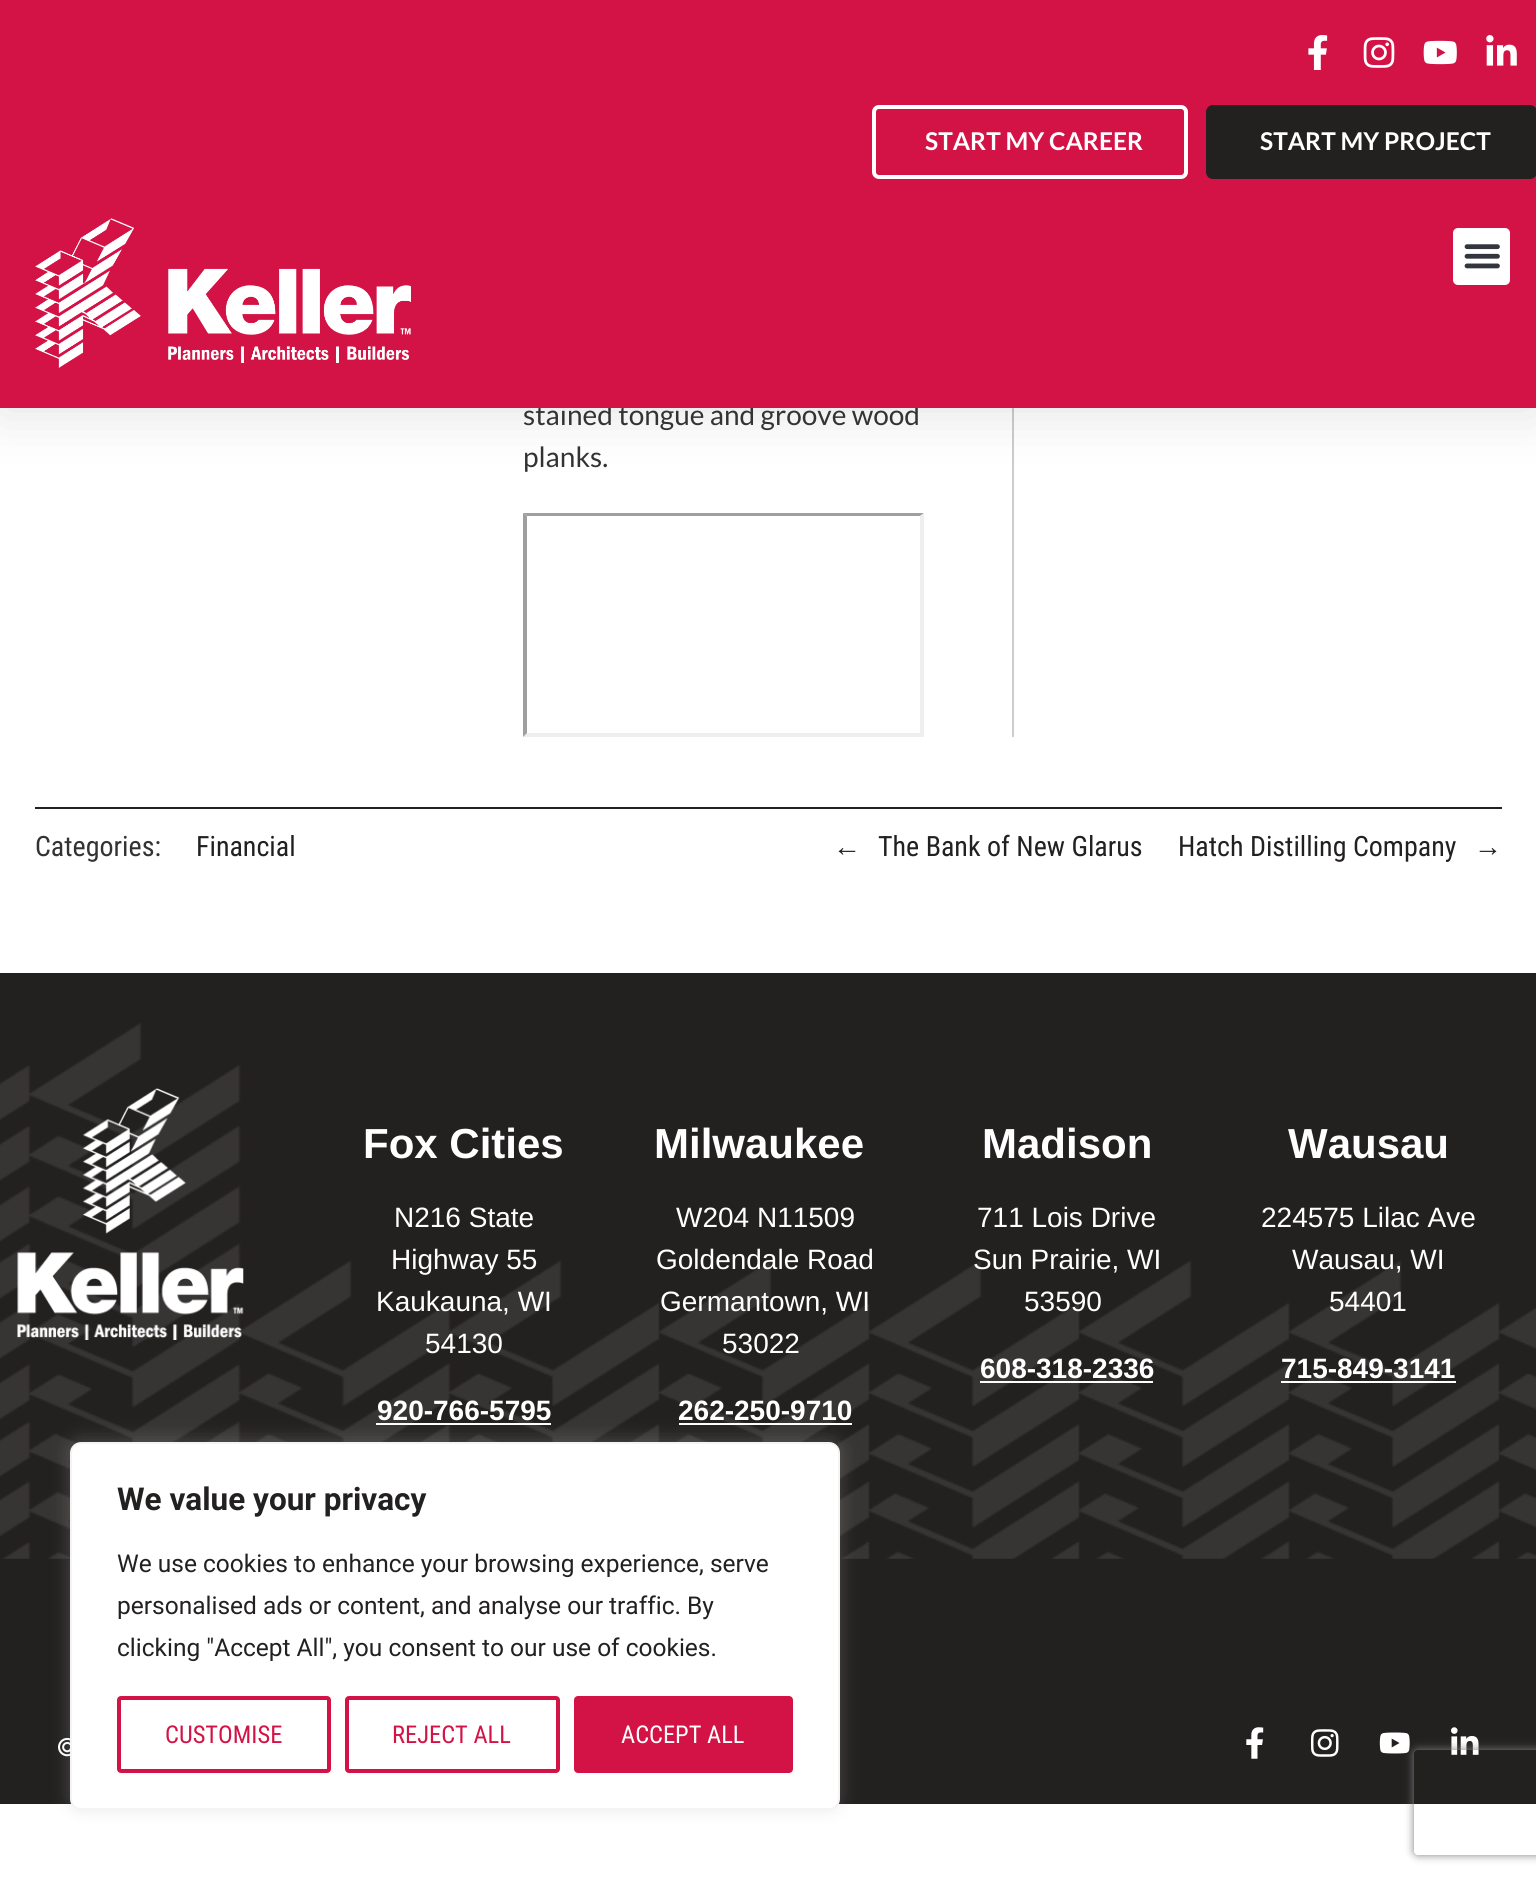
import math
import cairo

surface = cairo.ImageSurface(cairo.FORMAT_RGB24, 1536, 1878)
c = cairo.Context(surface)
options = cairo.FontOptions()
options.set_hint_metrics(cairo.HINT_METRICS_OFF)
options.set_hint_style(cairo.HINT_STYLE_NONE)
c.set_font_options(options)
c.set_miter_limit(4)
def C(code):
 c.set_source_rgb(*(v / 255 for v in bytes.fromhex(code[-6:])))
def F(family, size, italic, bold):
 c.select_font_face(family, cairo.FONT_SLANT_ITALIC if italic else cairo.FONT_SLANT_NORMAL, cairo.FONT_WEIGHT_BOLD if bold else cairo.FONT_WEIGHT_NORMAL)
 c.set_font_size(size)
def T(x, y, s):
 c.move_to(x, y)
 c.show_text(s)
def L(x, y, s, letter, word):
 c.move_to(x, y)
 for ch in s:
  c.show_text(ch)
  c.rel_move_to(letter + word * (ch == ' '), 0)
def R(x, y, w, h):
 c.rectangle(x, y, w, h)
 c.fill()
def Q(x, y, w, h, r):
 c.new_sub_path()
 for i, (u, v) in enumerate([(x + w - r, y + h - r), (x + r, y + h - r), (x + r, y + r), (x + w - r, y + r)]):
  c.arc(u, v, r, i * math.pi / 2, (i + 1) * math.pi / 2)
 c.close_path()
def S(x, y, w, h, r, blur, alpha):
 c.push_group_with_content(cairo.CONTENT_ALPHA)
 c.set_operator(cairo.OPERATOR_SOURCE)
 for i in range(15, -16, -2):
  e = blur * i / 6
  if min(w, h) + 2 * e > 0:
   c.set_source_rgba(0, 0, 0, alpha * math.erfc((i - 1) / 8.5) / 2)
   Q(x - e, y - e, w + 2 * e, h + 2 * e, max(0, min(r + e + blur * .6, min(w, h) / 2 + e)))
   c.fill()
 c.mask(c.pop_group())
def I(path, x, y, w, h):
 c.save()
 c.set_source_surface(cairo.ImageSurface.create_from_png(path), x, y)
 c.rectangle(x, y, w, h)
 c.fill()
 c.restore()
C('ffffff')
c.paint()
C('cccccc')
R(1012,408,2,329)
C('000000')
S(0,9,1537,408,0,26,.1)
F('Lato',28,0,0)
C('333333')
T(523,425,'stained tongue and groove wood')
C('d31245')
R(0,0,1536,408)
I('1.png',1308,35,20,35)
I('2.png',1363,37,32,31)
I('3.png',1423,40,34,25)
I('4.png',1486,35,31,31)
Q(874,107,312,70,5)
C('ffffff')
c.set_line_width(4)
c.stroke()
F('Lato',24.5,0,1)
T(925,150,'START MY CAREER')
C('232020')
Q(1208,107,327,70,5)
c.fill_preserve()
c.stroke()
C('ffffff')
T(1260,150,'START MY PROJECT')
I('5.png',35,218,376,150)
Q(1453,228,57,57,5)
c.fill()
I('6.png',1464,244,36,25)
F('Lato',28,0,0)
C('333333')
T(523,467,'planks.')
C('9f9f9f')
c.new_path()
c.move_to(523,513)
c.line_to(924,513)
c.line_to(920,516)
c.line_to(527,516)
c.close_path()
c.fill()
C('eeeeee')
c.new_path()
c.move_to(924,513)
c.line_to(924,737)
c.line_to(920,733)
c.line_to(920,516)
c.close_path()
c.fill()
c.new_path()
c.move_to(924,737)
c.line_to(523,737)
c.line_to(527,733)
c.line_to(920,733)
c.close_path()
c.fill()
C('9f9f9f')
c.new_path()
c.move_to(523,737)
c.line_to(523,513)
c.line_to(527,516)
c.line_to(527,733)
c.close_path()
c.fill()
C('232020')
R(35,807,1467,2)
F('Roboto Condensed',28,0,0)
C('333333')
T(35,856,'Categories:')
C('232020')
T(196,856,'Financial')
F('Liberation Sans',28,0,0)
T(833,856,'←')
F('Roboto Condensed',28,0,0)
T(878,856,'The Bank of New Glarus')
T(1178,856,'Hatch Distilling Company')
F('Liberation Sans',28,0,0)
T(1474,856,'→')
R(0,973,1536,831)
I('7.png',0,1023,1536,536)
I('8.png',17,1088,227,252)
F('Liberation Sans',42,0,1)
C('ffffff')
T(363,1158,'Fox Cities')
F('Liberation Sans',28,0,0)
T(394,1227,'N216 State')
T(391,1269,'Highway 55')
T(376,1311,'Kaukauna, WI')
T(425,1353,'54130')
F('Liberation Sans',28,0,1)
T(377,1420,'920-766-5795')
R(376,1423,175,2)
F('Liberation Sans',42,0,1)
T(654,1158,'Milwaukee')
F('Liberation Sans',28,0,0)
T(676,1227,'W204 N11509')
T(656,1269,'Goldendale Road')
T(660,1311,'Germantown, WI')
T(722,1353,'53022')
F('Liberation Sans',28,0,1)
T(678,1420,'262-250-9710')
R(679,1423,173,2)
F('Liberation Sans',42,0,1)
T(982,1158,'Madison')
F('Liberation Sans',28,0,0)
T(977,1227,'711 Lois Drive')
T(973,1269,'Sun Prairie, WI')
T(1024,1311,'53590')
F('Liberation Sans',28,0,1)
T(980,1378,'608-318-2336')
R(980,1381,173,2)
F('Liberation Sans',42,0,1)
T(1288,1158,'Wausau')
F('Liberation Sans',28,0,0)
T(1261,1227,'224575 Lilac Ave')
T(1292,1269,'Wausau, WI')
T(1329,1311,'54401')
F('Liberation Sans',28,0,1)
T(1281,1378,'715-849-3141')
R(1281,1381,175,2)
F('Inter',24.5,0,0)
L(56,1756,'©',-1,0)
I('9.png',1246,1727,18,32)
I('10.png',1310,1729,29,28)
I('11.png',1379,1732,31,22)
I('12.png',1451,1727,28,28)
C('acabab')
S(70,1440,770,368,11,9,.3)
C('ffffff')
Q(71,1443,768,366,10)
c.fill_preserve()
C('f4f4f4')
c.set_line_width(2)
c.stroke()
F('Roboto',31.5,0,1)
C('232020')
T(117,1510,'We value your privacy')
F('Roboto',24.5,0,0)
T(117,1572,'We use cookies to enhance your browsing experience, serve')
T(117,1614,'personalised ads or content, and analyse our traffic. By')
T(117,1656,'clicking "Accept All", you consent to our use of cookies.')
Q(119,1698,210,73,2)
C('d31245')
c.set_line_width(4)
c.stroke()
F('Roboto Condensed',24.5,0,0)
T(165,1743,'CUSTOMISE')
Q(347,1698,211,73,2)
c.stroke()
T(392,1743,'REJECT ALL')
Q(576,1698,215,73,2)
c.fill_preserve()
c.stroke()
C('ffffff')
T(621,1743,'ACCEPT ALL')
c.save()
c.set_fill_rule(cairo.FILL_RULE_EVEN_ODD)
c.new_path()
c.move_to(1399,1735)
c.line_to(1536,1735)
c.line_to(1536,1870)
c.line_to(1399,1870)
c.close_path()
c.move_to(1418,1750)
c.line_to(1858,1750)
c.curve_to(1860,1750,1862,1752,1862,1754)
c.line_to(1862,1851)
c.curve_to(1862,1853,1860,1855,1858,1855)
c.line_to(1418,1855)
c.curve_to(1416,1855,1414,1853,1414,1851)
c.line_to(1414,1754)
c.curve_to(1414,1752,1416,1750,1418,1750)
c.close_path()
c.clip()
C('808080')
S(1414,1750,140,105,4,4.5,1)
c.restore()
surface.write_to_png('o.png')
